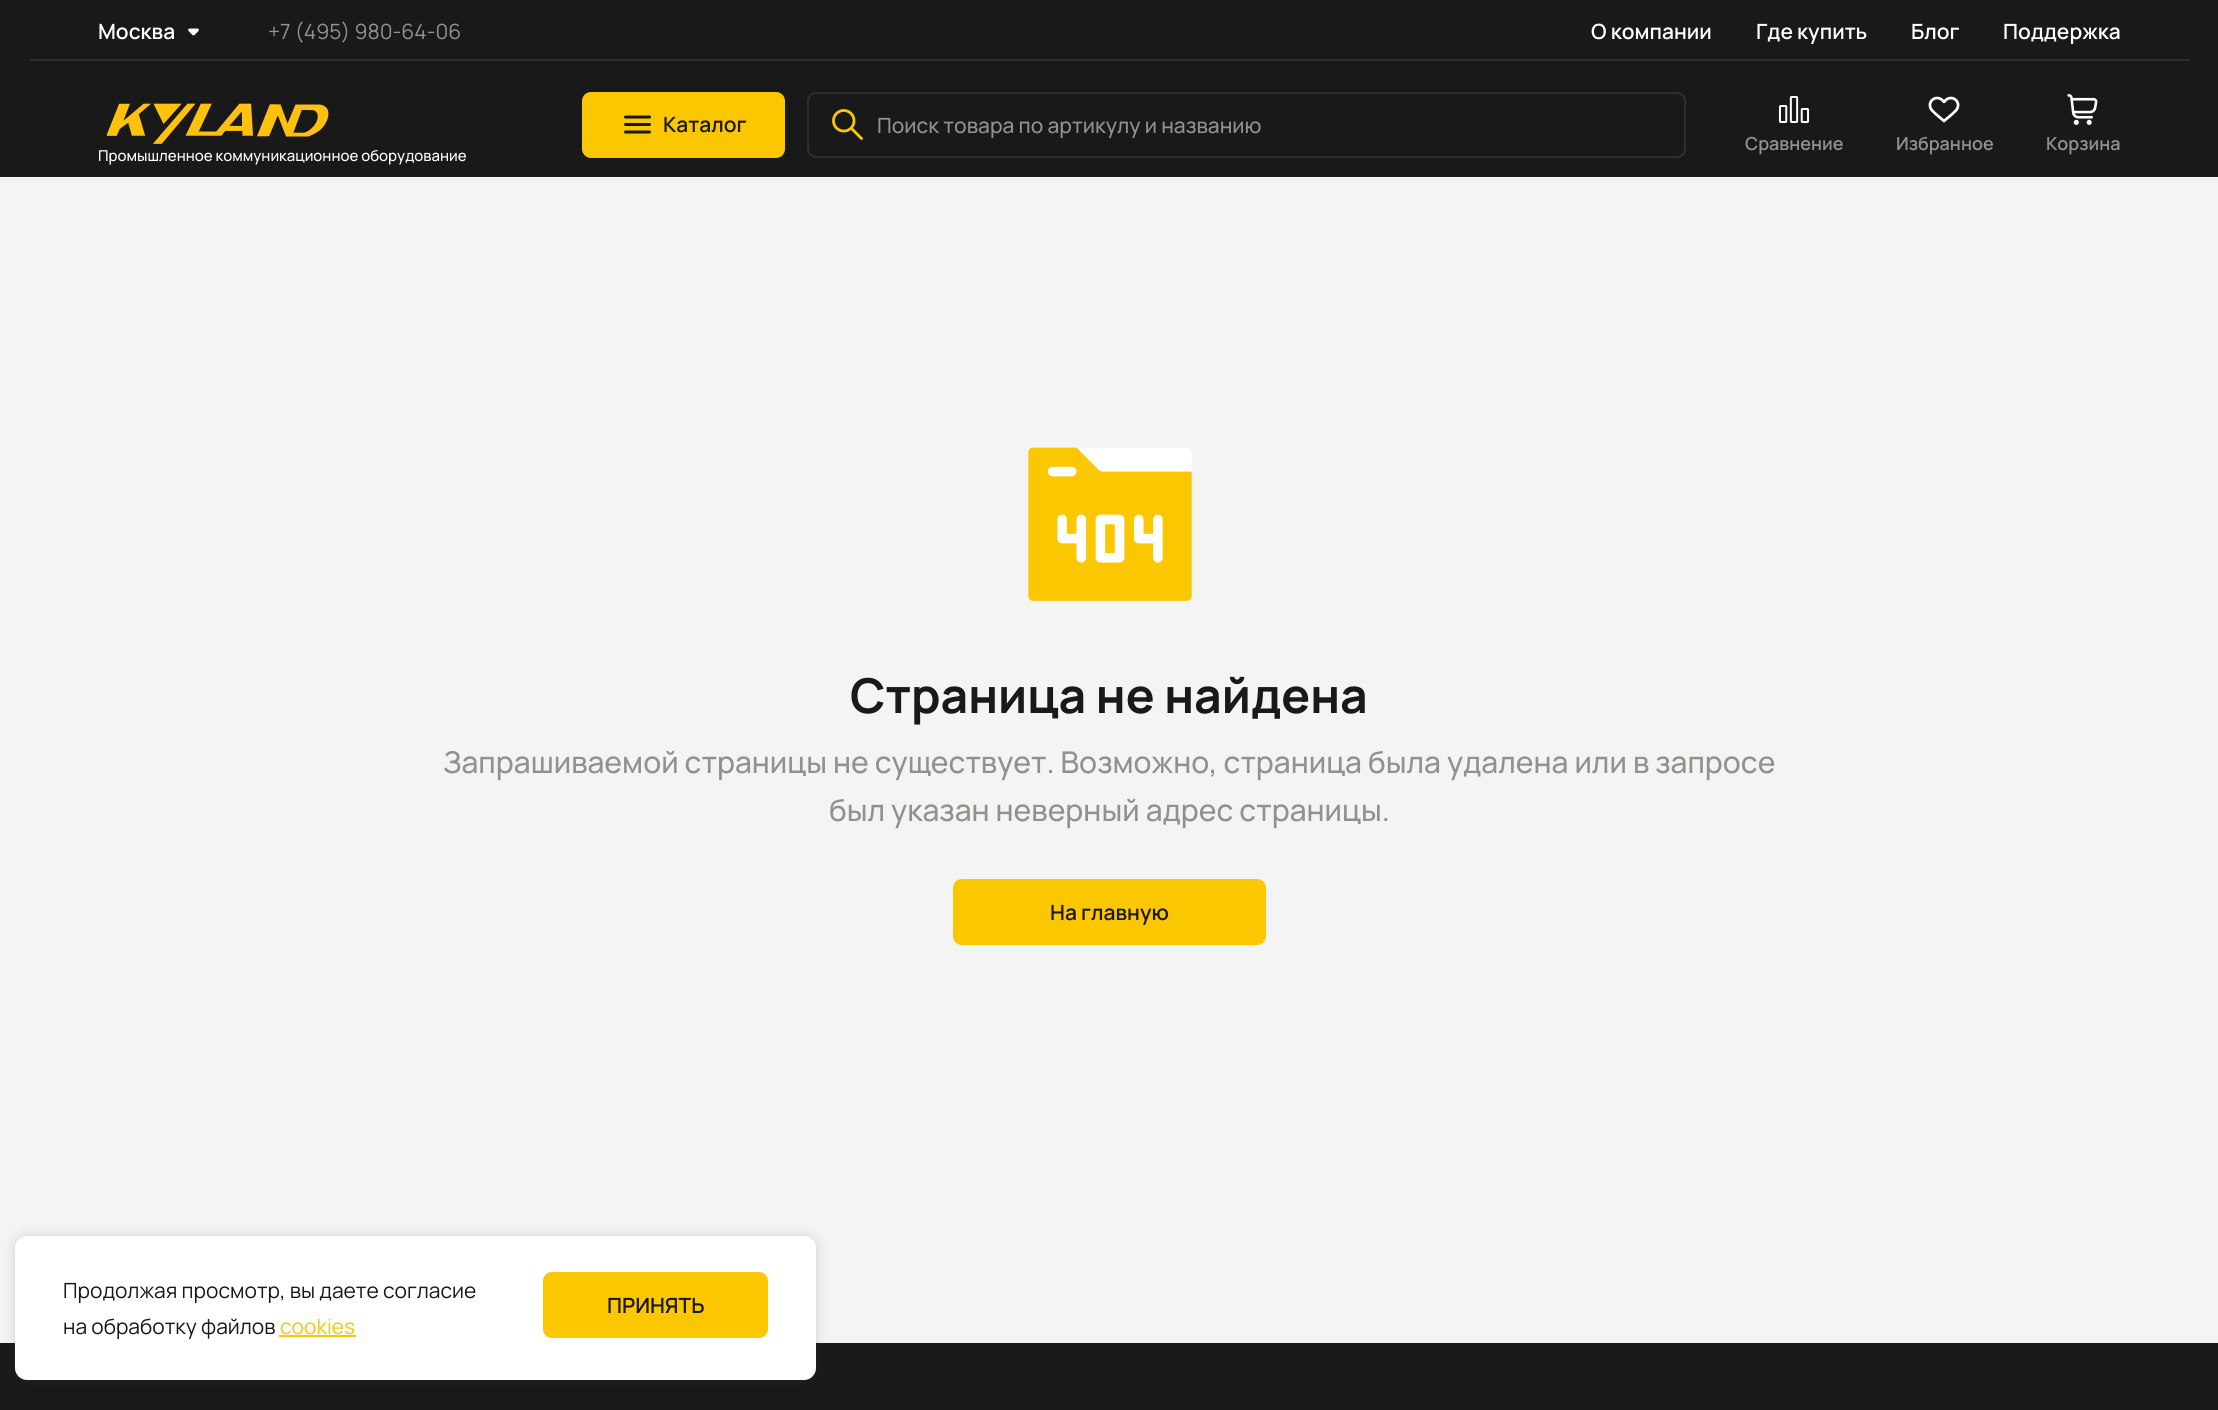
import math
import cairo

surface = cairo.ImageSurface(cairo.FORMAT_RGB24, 2218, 1410)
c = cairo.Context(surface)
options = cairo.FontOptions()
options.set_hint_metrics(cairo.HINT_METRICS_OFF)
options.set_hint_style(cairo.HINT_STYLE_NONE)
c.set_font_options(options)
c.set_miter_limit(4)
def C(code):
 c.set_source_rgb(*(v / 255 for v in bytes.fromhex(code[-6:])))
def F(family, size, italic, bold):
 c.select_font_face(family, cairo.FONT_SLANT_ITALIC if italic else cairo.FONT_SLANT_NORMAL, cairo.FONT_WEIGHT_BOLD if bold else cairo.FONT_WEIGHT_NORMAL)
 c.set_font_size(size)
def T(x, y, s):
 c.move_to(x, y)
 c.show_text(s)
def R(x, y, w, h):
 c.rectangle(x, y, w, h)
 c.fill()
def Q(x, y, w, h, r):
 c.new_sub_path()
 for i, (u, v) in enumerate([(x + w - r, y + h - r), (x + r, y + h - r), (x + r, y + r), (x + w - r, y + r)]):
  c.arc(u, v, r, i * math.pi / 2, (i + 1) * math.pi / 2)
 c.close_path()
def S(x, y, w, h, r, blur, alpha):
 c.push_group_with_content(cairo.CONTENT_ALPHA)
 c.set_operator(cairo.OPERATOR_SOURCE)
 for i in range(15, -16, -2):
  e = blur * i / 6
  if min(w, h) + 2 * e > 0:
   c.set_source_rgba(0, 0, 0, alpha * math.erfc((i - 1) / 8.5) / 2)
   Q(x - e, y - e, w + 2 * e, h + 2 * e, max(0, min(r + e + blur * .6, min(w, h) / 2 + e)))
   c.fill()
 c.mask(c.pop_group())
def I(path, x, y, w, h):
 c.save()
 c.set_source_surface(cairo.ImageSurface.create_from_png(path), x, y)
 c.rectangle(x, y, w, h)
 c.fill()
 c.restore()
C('f4f4f4')
c.paint()
C('003979')
S(0,0,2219,179,0,1.5,.15)
C('191919')
R(0,0,2218,177)
C('f4f4f4')
R(0,177,2218,2)
C('2c2f32')
R(30,59,2160,2)
F('Manrope SemiBold',21,0,0)
C('ffffff')
T(98,39,'Москва')
I('1.png',188,28,11,8)
F('Manrope',21,0,0)
C('91928c')
T(268,39,'+7 (495) 980-64-06')
F('Manrope SemiBold',21,0,0)
C('ffffff')
T(1591,39,'О компании')
T(1756,39,'Где купить')
T(1911,39,'Блог')
T(2003,39,'Поддержка')
C('fbc700')
Q(582,92,203,66,9)
c.fill()
I('2.png',624,115,27,19)
C('191919')
T(663,132,'Каталог')
Q(808,93,877,64,8)
C('2c2f32')
c.stroke()
I('3.png',832,109,31,31)
F('Manrope Medium',21,0,0)
C('91928c')
T(877,133,'Поиск товара по артикулу и названию')
I('4.png',1778,96,32,27)
F('Manrope SemiBold',18,0,0)
T(1745,150,'Сравнение')
I('5.png',1928,96,32,27)
T(1896,150,'Избранное')
I('6.png',2067,94,31,31)
T(2046,150,'Корзина')
I('7.png',106,103,223,41)
F('Manrope Medium',15,0,0)
C('ffffff')
T(98,161,'Промышленное коммуникационное оборудование')
I('8.png',1028,447,164,154)
F('Manrope',48,0,1)
C('191919')
T(850,713,'Страница не найдена')
F('Manrope Medium',30,0,0)
C('91928c')
T(443,773,'Запрашиваемой страницы не существует. Возможно, страница была удалена или в запросе')
T(829,821,'был указан неверный адрес страницы.')
C('fbc700')
Q(953,879,313,66,9)
c.fill()
F('Manrope SemiBold',21,0,0)
C('191919')
T(1050,920,'На главную')
R(0,1343,2218,67)
C('223c50')
S(15,1236,801,144,12,6,.2)
C('ffffff')
Q(15,1236,801,144,12)
c.fill()
F('Manrope',21,0,0)
C('191919')
T(63,1298,'Продолжая просмотр, вы даете согласие')
T(63,1334,'на обработку файлов')
C('fbc700')
T(280,1334,'cookies')
R(279,1335,77,2)
Q(543,1272,225,66,9)
c.fill()
F('Manrope SemiBold',21,0,0)
C('191919')
T(607,1313,'ПРИНЯТЬ')
surface.write_to_png('o.png')
